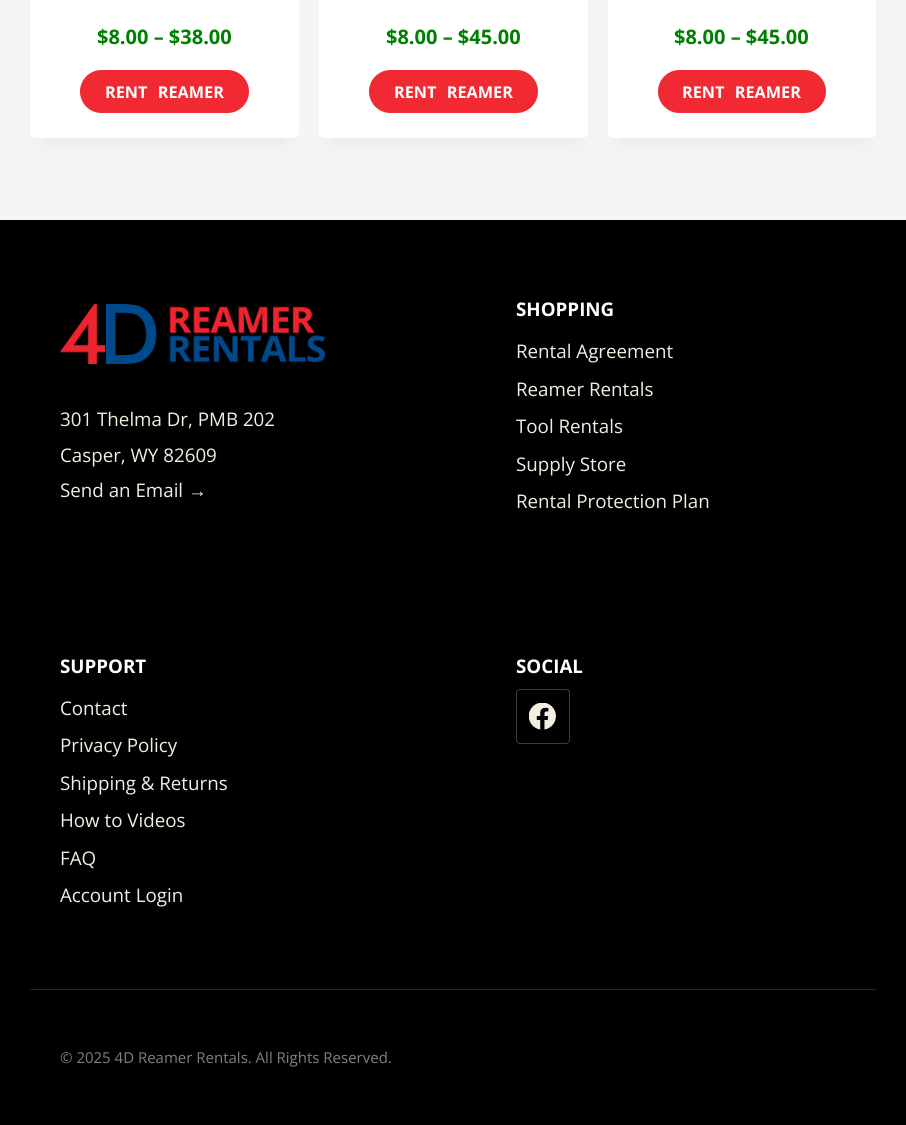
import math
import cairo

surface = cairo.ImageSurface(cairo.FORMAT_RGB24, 906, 1125)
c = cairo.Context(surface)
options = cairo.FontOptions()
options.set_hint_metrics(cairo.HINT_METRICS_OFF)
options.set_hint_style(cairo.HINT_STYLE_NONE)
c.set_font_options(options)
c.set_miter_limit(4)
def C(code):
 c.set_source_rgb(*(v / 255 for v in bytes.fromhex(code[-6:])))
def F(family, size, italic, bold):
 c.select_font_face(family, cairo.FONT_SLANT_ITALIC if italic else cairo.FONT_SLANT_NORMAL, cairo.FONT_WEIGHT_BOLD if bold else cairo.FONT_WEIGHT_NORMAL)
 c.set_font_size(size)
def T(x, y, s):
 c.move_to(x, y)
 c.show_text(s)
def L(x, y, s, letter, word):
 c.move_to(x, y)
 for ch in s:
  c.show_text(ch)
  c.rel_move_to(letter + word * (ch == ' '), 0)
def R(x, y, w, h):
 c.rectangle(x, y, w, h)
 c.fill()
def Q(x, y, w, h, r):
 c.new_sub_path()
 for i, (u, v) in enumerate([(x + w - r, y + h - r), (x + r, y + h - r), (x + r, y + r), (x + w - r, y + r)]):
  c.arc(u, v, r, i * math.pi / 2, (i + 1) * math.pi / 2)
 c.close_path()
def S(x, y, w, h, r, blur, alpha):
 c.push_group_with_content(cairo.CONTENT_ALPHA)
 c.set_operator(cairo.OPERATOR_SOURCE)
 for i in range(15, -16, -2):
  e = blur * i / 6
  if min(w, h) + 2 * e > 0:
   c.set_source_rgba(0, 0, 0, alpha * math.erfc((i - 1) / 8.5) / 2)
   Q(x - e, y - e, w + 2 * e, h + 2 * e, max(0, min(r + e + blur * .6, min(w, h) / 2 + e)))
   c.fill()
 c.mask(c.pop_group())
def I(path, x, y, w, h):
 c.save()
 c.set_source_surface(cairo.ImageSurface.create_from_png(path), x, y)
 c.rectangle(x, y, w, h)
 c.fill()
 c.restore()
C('f5f5f5')
c.paint()
C('000000')
S(43,-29,243,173,0,9.5,.05)
C('ffffff')
Q(30,-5,269,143,5)
c.fill()
F('Open Sans',20,0,1)
C('008000')
T(97,44,'$8.00 – $38.00')
C('f02933')
Q(80,70,169,43,21.5)
c.fill()
F('Open Sans',16.25,0,1)
C('ffffff')
L(105,98,'RENT REAMER',0,6)
C('000000')
S(331,-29,244,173,0,9.5,.05)
C('ffffff')
Q(319,-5,269,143,5)
c.fill()
F('Open Sans',20,0,1)
C('008000')
T(386,44,'$8.00 – $45.00')
C('f02933')
Q(369,70,169,43,21.5)
c.fill()
F('Open Sans',16.25,0,1)
C('ffffff')
L(394,98,'RENT REAMER',0,6)
C('000000')
S(620,-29,244,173,0,9.5,.05)
C('ffffff')
Q(608,-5,268,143,5)
c.fill()
F('Open Sans',20,0,1)
C('008000')
T(674,44,'$8.00 – $45.00')
C('f02933')
Q(658,70,168,43,21.5)
c.fill()
F('Open Sans',16.25,0,1)
C('ffffff')
L(682,98,'RENT REAMER',0,6)
C('000000')
R(0,220,906,905)
I('1.png',60,304,265,60)
F('Open Sans',18.75,0,0)
C('f2eee2')
T(60,426,'301 Thelma Dr, PMB 202')
T(60,462,'Casper, WY 82609')
T(60,497,'Send an Email')
F('Liberation Sans',18.75,0,0)
T(188,497,'→')
F('Open Sans',18.75,0,1)
C('ffffff')
T(516,316,'SHOPPING')
F('Open Sans',18.75,0,0)
C('f2eee2')
T(516,358,'Rental Agreement')
T(516,396,'Reamer Rentals')
T(516,433,'Tool Rentals')
T(516,471,'Supply Store')
T(516,508,'Rental Protection Plan')
F('Open Sans',18.75,0,1)
C('ffffff')
T(60,673,'SUPPORT')
F('Open Sans',18.75,0,0)
C('f2eee2')
T(60,715,'Contact')
T(60,752,'Privacy Policy')
T(60,790,'Shipping & Returns')
T(60,827,'How to Videos')
T(60,865,'FAQ')
T(60,902,'Account Login')
F('Open Sans',18.75,0,1)
C('ffffff')
T(516,673,'SOCIAL')
Q(516.5,689.5,53,54,3.5)
C('3b3d3e')
c.set_line_width(1)
c.stroke()
I('2.png',529,703,27,27)
C('242425')
R(30,989,846,1)
F('Open Sans',15,0,0)
C('808080')
T(60,1063,'© 2025 4D Reamer Rentals. All Rights Reserved.')
surface.write_to_png('o.png')
